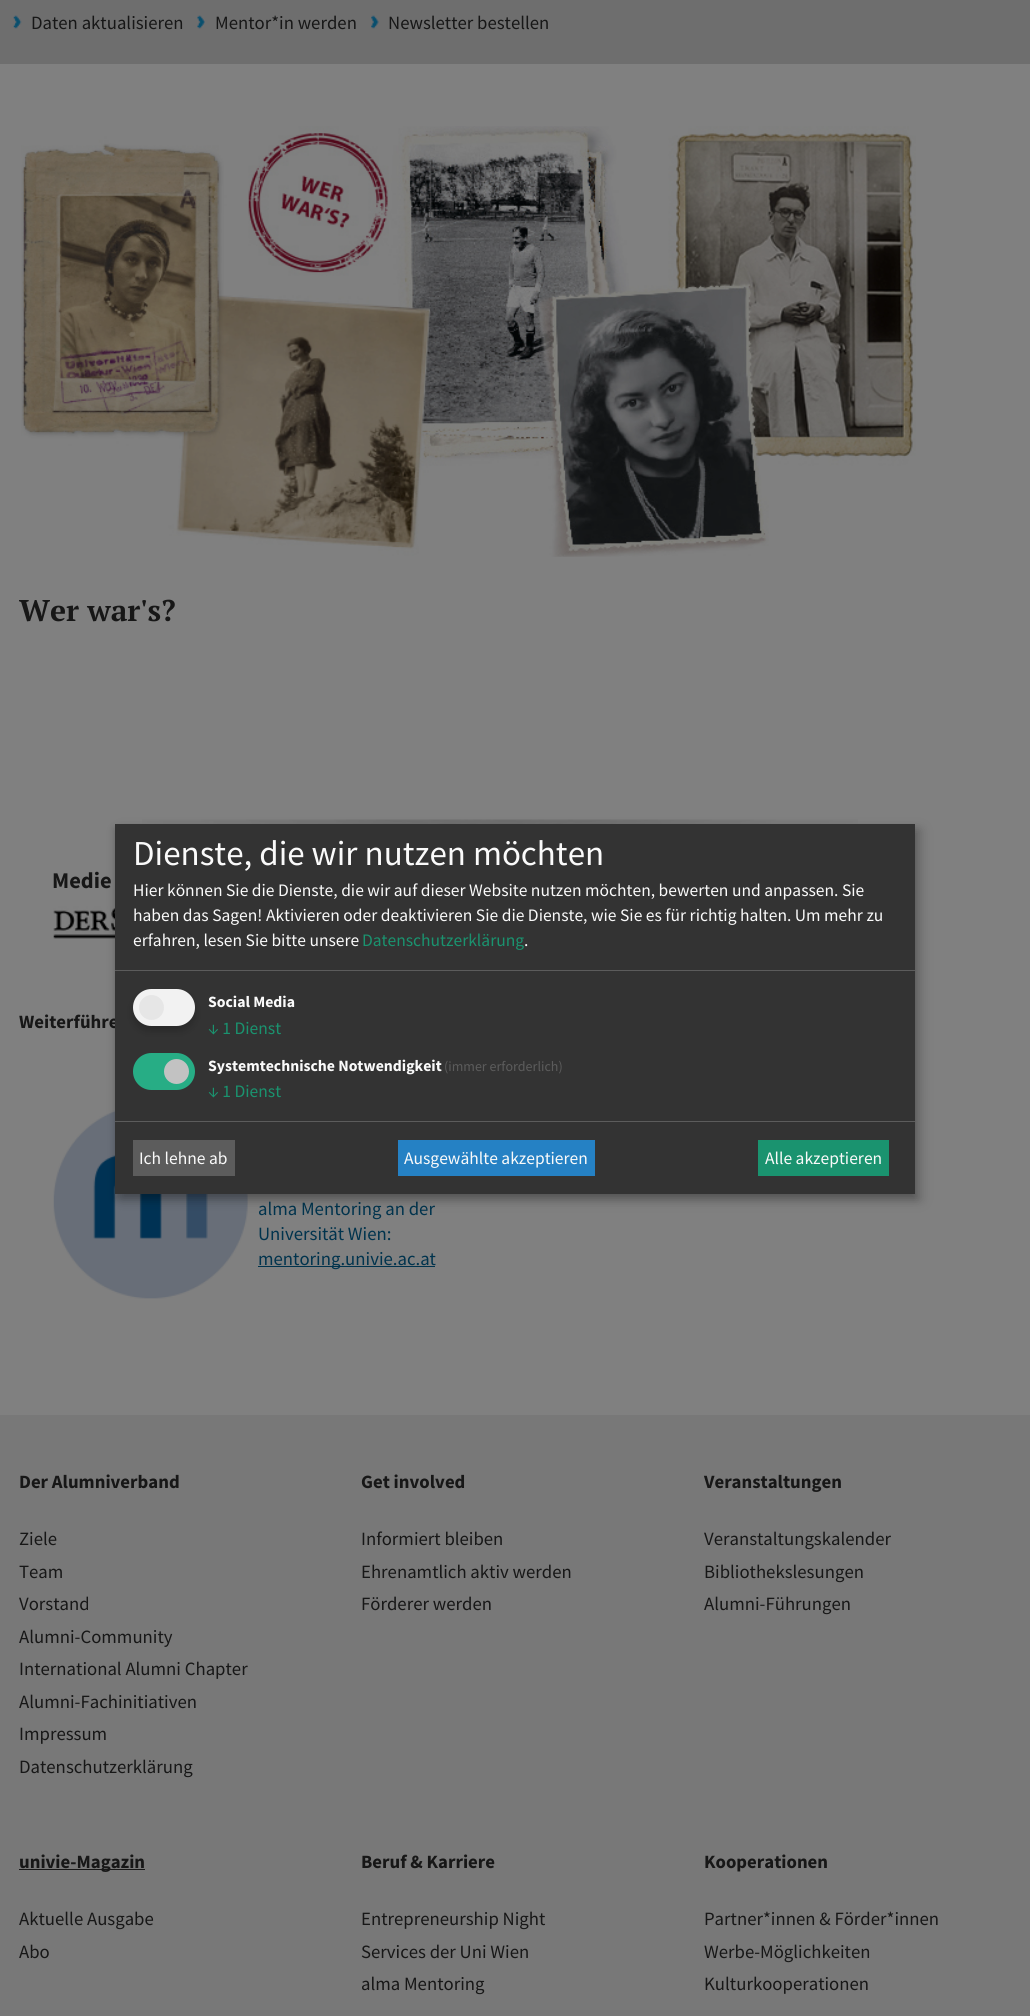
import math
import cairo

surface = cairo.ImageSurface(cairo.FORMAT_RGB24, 1030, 2016)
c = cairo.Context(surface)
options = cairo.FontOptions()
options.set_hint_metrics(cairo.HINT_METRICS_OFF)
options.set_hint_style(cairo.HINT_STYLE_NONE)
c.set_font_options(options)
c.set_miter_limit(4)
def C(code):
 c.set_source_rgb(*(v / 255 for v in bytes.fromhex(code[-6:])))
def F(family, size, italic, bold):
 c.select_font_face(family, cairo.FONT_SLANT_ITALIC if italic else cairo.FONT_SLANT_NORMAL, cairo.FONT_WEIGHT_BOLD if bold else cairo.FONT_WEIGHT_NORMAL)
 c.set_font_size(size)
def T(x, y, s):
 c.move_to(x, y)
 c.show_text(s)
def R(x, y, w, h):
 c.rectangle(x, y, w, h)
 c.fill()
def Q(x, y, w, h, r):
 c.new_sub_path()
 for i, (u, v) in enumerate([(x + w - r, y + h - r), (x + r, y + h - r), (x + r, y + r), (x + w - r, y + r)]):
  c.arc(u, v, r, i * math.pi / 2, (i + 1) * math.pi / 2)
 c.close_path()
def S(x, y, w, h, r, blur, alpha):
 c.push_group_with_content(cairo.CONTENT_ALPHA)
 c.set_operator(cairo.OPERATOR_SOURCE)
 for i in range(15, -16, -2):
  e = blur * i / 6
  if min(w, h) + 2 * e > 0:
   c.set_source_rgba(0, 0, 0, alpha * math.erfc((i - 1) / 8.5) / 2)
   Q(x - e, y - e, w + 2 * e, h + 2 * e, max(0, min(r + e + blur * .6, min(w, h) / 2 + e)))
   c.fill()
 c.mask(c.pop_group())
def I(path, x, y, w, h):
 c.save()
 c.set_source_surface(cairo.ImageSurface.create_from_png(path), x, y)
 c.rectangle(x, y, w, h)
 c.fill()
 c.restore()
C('787878')
c.paint()
C('808080')
R(0,64,1030,1351)
C('6e6e6e')
R(0,0,1030,64)
I('1.png',13,15,9,14)
F('Source Sans Pro',18.75,0,0)
C('171717')
T(31,29,'Daten aktualisieren')
I('2.png',197,15,8,14)
T(215,29,'Mentor*in werden')
I('3.png',371,15,8,14)
T(388,29,'Newsletter bestellen')
I('4.png',21,126,895,431)
F('PT Serif',30,0,1)
T(19,621,'Wer war\'s?')
I('5.png',142,819,716,5)
F('Source Sans Pro',22.5,0,1)
T(52,888,'Medie')
I('6.png',53,906,62,33)
F('Source Sans Pro',18.75,0,1)
T(19,1028,'Weiterführe')
I('7.png',53,1104,195,195)
F('Source Sans Pro',18.75,0,0)
C('00334d')
T(258,1215,'alma Mentoring an der')
T(258,1240,'Universität Wien:')
R(258,1266,177,1)
T(258,1265,'mentoring.univie.ac.at')
F('Source Sans Pro',18.75,0,1)
C('171717')
T(19,1488,'Der Alumniverband')
F('Source Sans Pro',18.75,0,0)
T(19,1545,'Ziele')
T(19,1578,'Team')
T(19,1610,'Vorstand')
T(19,1643,'Alumni-Community')
T(19,1675,'International Alumni Chapter')
T(19,1708,'Alumni-Fachinitiativen')
T(19,1740,'Impressum')
T(19,1773,'Datenschutzerklärung')
F('Source Sans Pro',18.75,0,1)
T(361,1488,'Get involved')
F('Source Sans Pro',18.75,0,0)
T(361,1545,'Informiert bleiben')
T(361,1578,'Ehrenamtlich aktiv werden')
T(361,1610,'Förderer werden')
F('Source Sans Pro',18.75,0,1)
T(704,1488,'Veranstaltungen')
F('Source Sans Pro',18.75,0,0)
T(704,1545,'Veranstaltungskalender')
T(704,1578,'Bibliothekslesungen')
T(704,1610,'Alumni-Führungen')
R(19,1869,126,1)
F('Source Sans Pro',18.75,0,1)
T(19,1868,'univie-Magazin')
F('Source Sans Pro',18.75,0,0)
T(19,1925,'Aktuelle Ausgabe')
T(19,1958,'Abo')
F('Source Sans Pro',18.75,0,1)
T(361,1868,'Beruf & Karriere')
F('Source Sans Pro',18.75,0,0)
T(361,1925,'Entrepreneurship Night')
T(361,1958,'Services der Uni Wien')
T(361,1990,'alma Mentoring')
F('Source Sans Pro',18.75,0,1)
T(704,1868,'Kooperationen')
F('Source Sans Pro',18.75,0,0)
T(704,1925,'Partner*innen & Förder*innen')
T(704,1958,'Werbe-Möglichkeiten')
T(704,1990,'Kulturkooperationen')
C('000000')
S(121,830,800,370,0,6,.19)
S(115,829,800,370,0,4,.2)
C('333333')
R(115,824,800,370)
C('5c5c5c')
R(115,970,800,1)
F('Source Sans Pro',35,0,0)
C('fafafa')
T(133,865,'Dienste, die wir nutzen möchten')
F('Source Sans Pro',17.5,0,0)
T(133,896,'Hier können Sie die Dienste, die wir auf dieser Website nutzen möchten, bewerten und anpassen. Sie')
T(133,921,'haben das Sagen! Aktivieren oder deaktivieren Sie die Dienste, wie Sie es für richtig halten. Um mehr zu')
T(133,946,'erfahren, lesen Sie bitte unsere')
C('1a936f')
T(362,946,'Datenschutzerklärung')
C('fafafa')
T(524,946,'.')
C('000000')
S(133,994,62,37,18.5,4,.2)
C('f2f2f2')
Q(133,989,62,37,18.5)
c.fill()
C('e6e6e6')
c.arc(151.5,1007.5,12.5,0,2 * math.pi)
c.fill()
F('Source Sans Pro',15.75,0,1)
C('fafafa')
T(208,1007,'Social Media')
F('Source Sans Pro',17.5,0,0)
C('1a936f')
T(208,1034,'↓ 1 Dienst')
C('27ad85')
Q(133,1053,62,37,18.5)
c.fill()
C('c2c2c2')
c.arc(176.5,1071.5,12.5,0,2 * math.pi)
c.fill()
F('Source Sans Pro',15.75,0,1)
C('fafafa')
T(208,1071,'Systemtechnische Notwendigkeit')
F('Source Sans Pro',14,0,0)
C('5c5c5c')
T(444,1071,'(immer erforderlich)')
F('Source Sans Pro',17.5,0,0)
C('1a936f')
T(208,1097,'↓ 1 Dienst')
C('5c5c5c')
R(115,1121,800,1)
R(133,1140,102,36)
C('fafafa')
T(139,1164,'Ich lehne ab')
C('2581c4')
R(398,1140,197,36)
C('fafafa')
T(404,1164,'Ausgewählte akzeptieren')
C('1a936f')
R(758,1140,131,36)
C('fafafa')
T(765,1164,'Alle akzeptieren')
surface.write_to_png('o.png')
